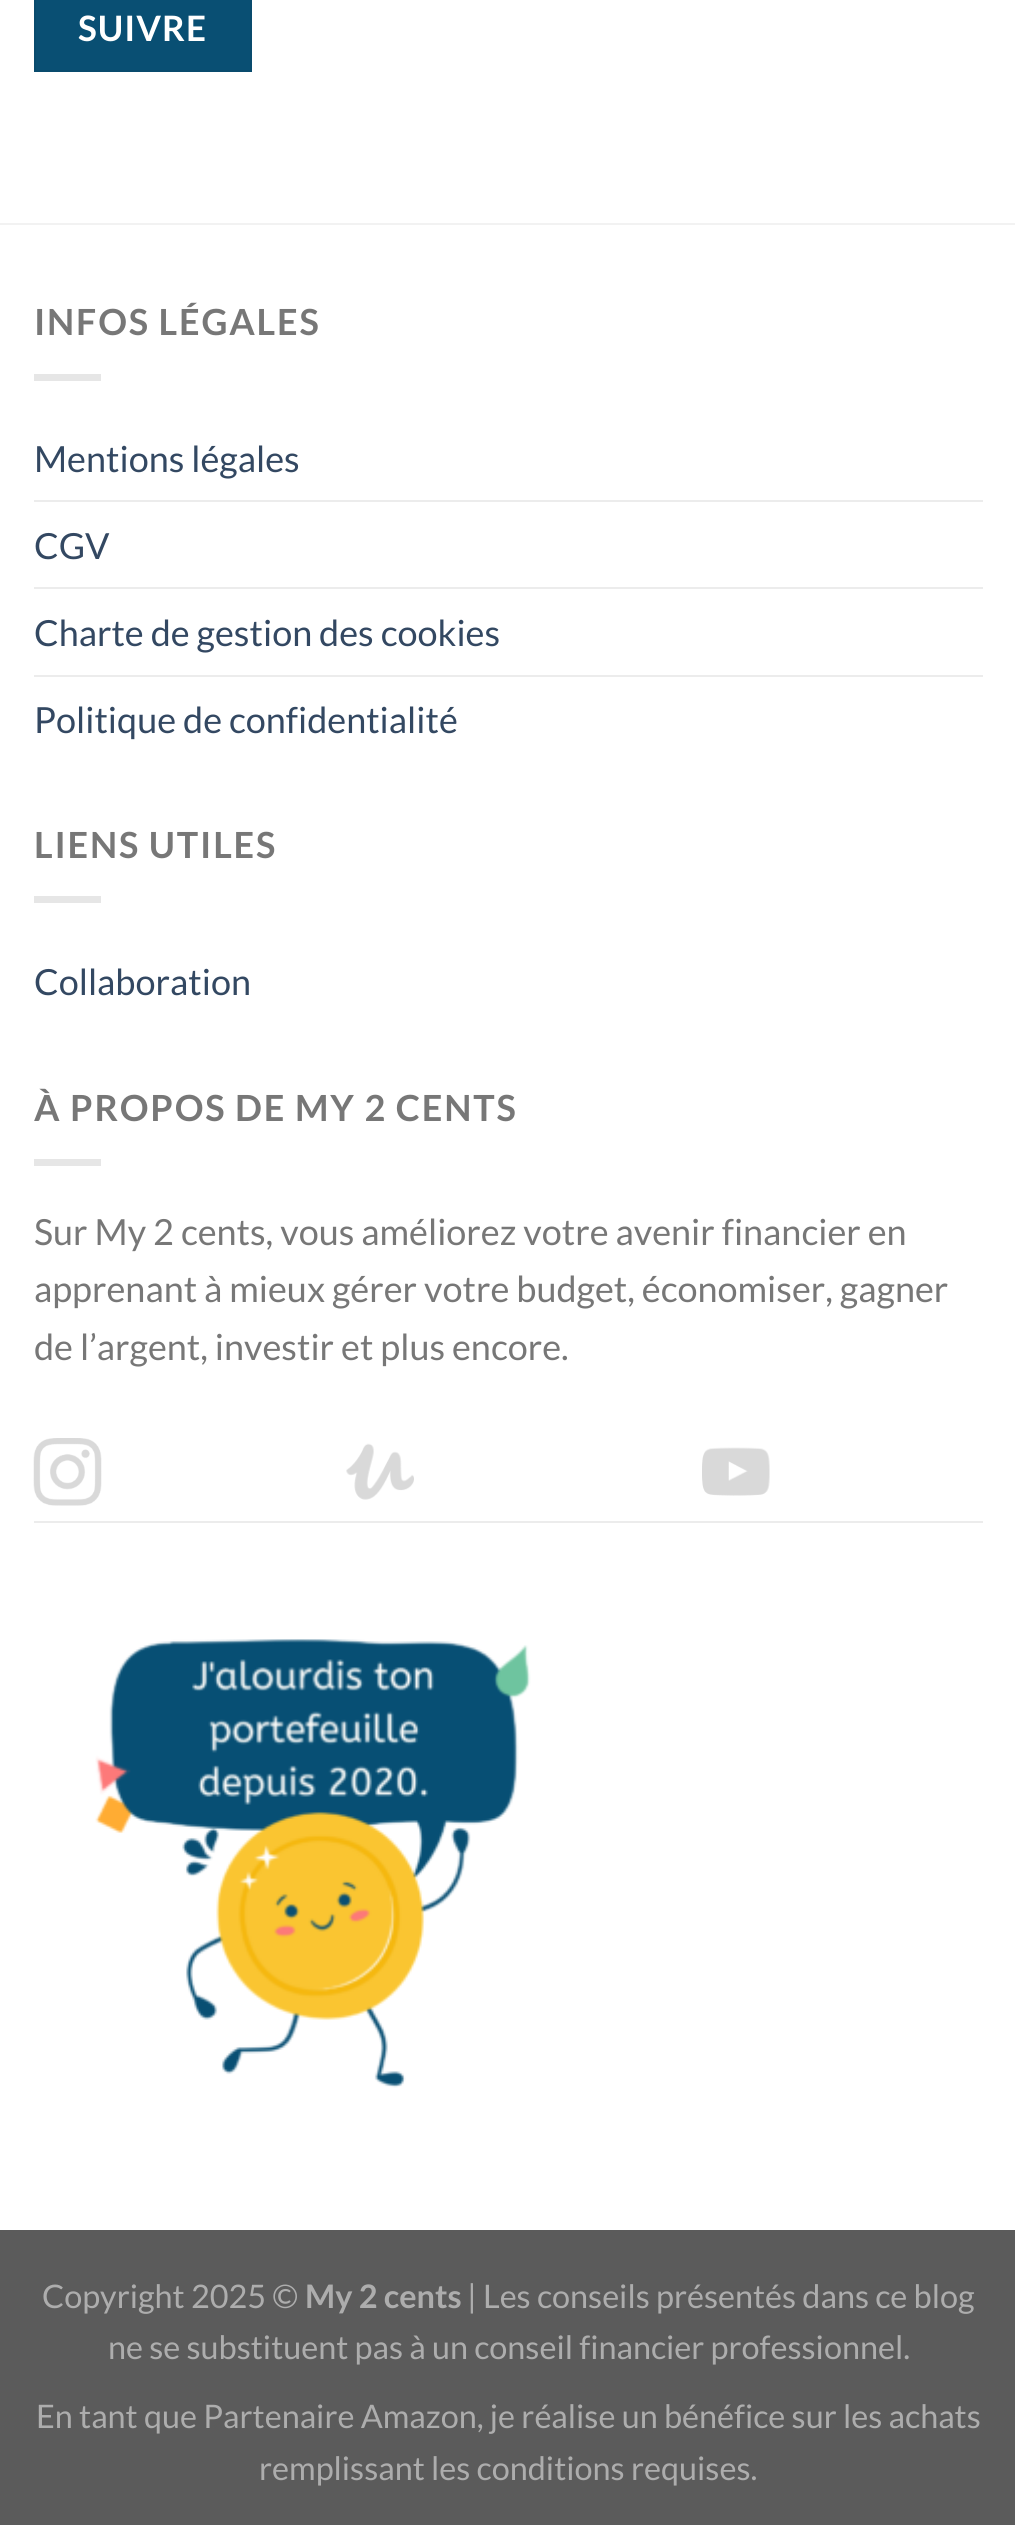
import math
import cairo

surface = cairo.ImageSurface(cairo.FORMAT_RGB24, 1015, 2525)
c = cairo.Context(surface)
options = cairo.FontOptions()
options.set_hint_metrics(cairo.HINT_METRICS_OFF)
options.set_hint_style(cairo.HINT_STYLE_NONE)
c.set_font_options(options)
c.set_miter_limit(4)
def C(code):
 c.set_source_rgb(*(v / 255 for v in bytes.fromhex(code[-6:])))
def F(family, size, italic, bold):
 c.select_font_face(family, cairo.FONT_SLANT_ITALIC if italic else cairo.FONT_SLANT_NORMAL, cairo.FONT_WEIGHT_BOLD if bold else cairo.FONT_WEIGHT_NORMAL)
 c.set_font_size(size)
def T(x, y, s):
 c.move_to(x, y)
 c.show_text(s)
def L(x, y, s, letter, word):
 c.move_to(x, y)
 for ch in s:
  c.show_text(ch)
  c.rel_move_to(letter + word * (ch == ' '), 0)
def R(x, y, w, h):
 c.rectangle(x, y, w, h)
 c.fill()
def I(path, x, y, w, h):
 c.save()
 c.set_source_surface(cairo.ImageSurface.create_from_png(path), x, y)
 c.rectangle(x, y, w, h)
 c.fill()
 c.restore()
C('ffffff')
c.paint()
C('094f73')
c.rectangle(35,-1,216,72)
c.fill_preserve()
C('094b6d')
c.stroke()
F('Lato',35,0,1)
C('ffffff')
L(78,41,'SUIVRE',1,0)
C('f2f2f2')
R(0,223,1015,2)
F('Lato',36,0,1)
C('777777')
L(34,335,'INFOS LÉGALES',1.8,0)
C('e6e6e6')
R(34,374,67,7)
F('Lato',36,0,0)
C('334862')
T(34,472,'Mentions légales')
C('ececec')
R(34,500,949,2)
C('334862')
T(34,559,'CGV')
C('ececec')
R(34,587,949,2)
C('334862')
T(34,646,'Charte de gestion des cookies')
C('ececec')
R(34,675,949,2)
C('334862')
T(34,733,'Politique de confidentialité')
F('Lato',36,0,1)
C('777777')
L(34,858,'LIENS UTILES',1.8,0)
C('e6e6e6')
R(34,896,67,7)
F('Lato',36,0,0)
C('334862')
T(34,995,'Collaboration')
F('Lato',36,0,1)
C('777777')
L(34,1121,'À PROPOS DE MY 2 CENTS',1.8,0)
C('e6e6e6')
R(34,1159,67,7)
F('Lato',36,0,0)
C('777777')
T(34,1245,'Sur My 2 cents, vous améliorez votre avenir financier en')
T(34,1302,'apprenant à mieux gérer votre budget, économiser, gagner')
T(34,1360,'de l’argent, investir et plus encore.')
C('ececec')
R(34,1521,949,2)
I('1.png',33,1438,69,68)
I('2.png',346,1443,68,57)
I('3.png',702,1447,68,49)
I('4.png',95,1639,436,449)
C('5b5b5b')
R(0,2230,1015,295)
F('Lato',32.4,0,0)
C('adadad')
T(42,2308,'Copyright 2025 ©')
F('Lato',32.4,0,1)
T(305,2308,'My 2 cents')
F('Lato',32.4,0,0)
T(467,2308,'| Les conseils présentés dans ce blog')
T(108,2359,'ne se substituent pas à un conseil financier professionnel.')
T(36,2428,'En tant que Partenaire Amazon, je réalise un bénéfice sur les achats')
T(259,2480,'remplissant les conditions requises.')
surface.write_to_png('o.png')
